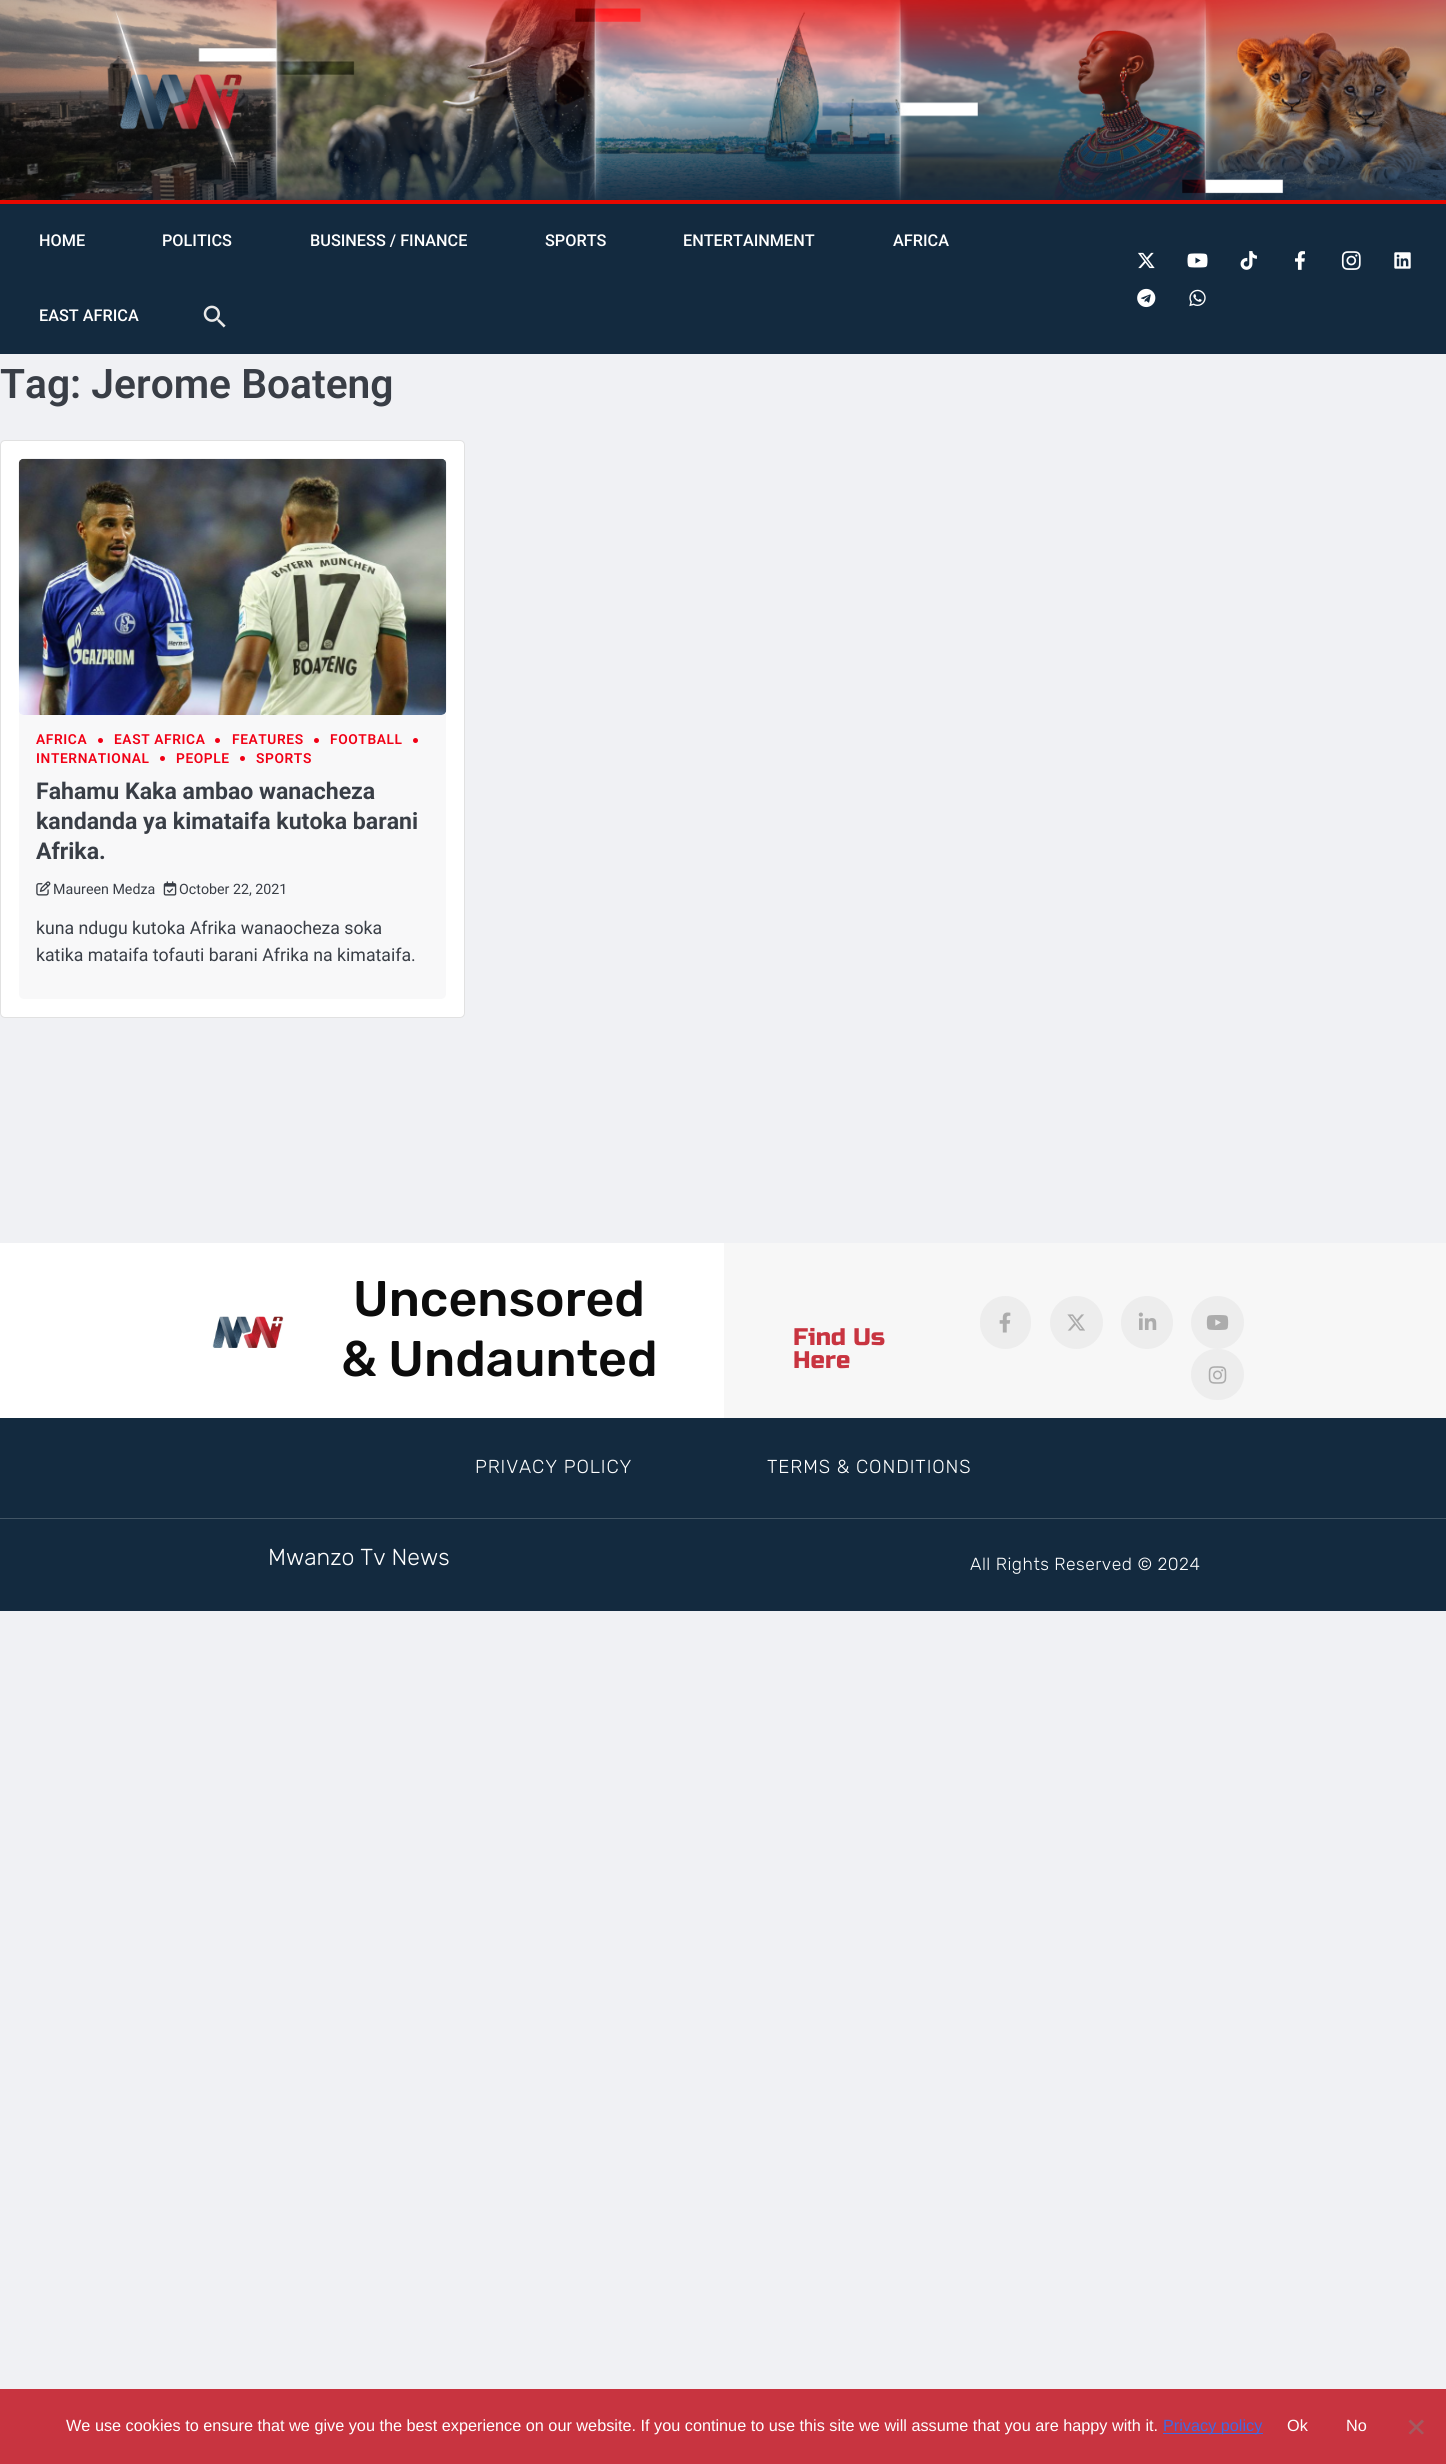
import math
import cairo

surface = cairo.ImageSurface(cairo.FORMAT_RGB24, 1446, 2464)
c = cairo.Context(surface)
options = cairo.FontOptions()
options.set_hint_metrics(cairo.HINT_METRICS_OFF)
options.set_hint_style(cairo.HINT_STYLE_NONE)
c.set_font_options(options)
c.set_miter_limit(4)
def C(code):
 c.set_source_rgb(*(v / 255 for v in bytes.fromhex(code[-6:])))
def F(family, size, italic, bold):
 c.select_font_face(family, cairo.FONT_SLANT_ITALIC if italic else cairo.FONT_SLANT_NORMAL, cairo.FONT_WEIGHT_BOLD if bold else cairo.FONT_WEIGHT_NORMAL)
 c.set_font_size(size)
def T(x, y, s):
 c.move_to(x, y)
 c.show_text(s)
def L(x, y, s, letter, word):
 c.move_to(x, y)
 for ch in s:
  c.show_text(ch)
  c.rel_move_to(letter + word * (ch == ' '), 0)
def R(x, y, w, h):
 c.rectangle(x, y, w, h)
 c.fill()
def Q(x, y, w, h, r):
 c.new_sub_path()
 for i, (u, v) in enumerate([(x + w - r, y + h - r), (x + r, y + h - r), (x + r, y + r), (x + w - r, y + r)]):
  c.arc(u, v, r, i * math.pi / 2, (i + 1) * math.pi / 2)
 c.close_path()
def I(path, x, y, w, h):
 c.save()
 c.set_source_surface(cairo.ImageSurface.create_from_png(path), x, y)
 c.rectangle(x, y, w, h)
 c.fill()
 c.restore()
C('f0f1f4')
c.paint()
I('1.png',0,0,1446,200)
C('132a3f')
R(0,204,1446,150)
C('e70800')
R(0,200,1446,4)
F('Roboto Medium',16.25,0,0)
C('ffffff')
T(39,246,'HOME')
T(162,246,'POLITICS')
T(310,246,'BUSINESS / FINANCE')
T(545,246,'SPORTS')
T(683,246,'ENTERTAINMENT')
T(893,246,'AFRICA')
T(39,321,'EAST AFRICA')
I('2.png',203,305,23,23)
I('3.png',1138,252,17,17)
I('4.png',1187,253,21,15)
I('5.png',1240,251,17,19)
I('6.png',1295,251,10,19)
I('7.png',1341,251,20,19)
I('8.png',1394,252,17,17)
I('9.png',1137,288,19,20)
I('10.png',1189,289,17,18)
F('Roboto SemiBold',40.75,0,0)
C('393e46')
T(0,398,'Tag: Jerome Boateng')
C('ffffff')
Q(.5,440.5,464,577,4.5)
c.fill_preserve()
C('e1e1e1')
c.set_line_width(1)
c.stroke()
C('f8f8f9')
Q(19,459,427,540,5)
c.fill()
I('11.png',18,458,429,257)
F('Roboto SemiBold',13.75,0,0)
C('f10015')
L(36,744,'AFRICA',.6,0)
c.new_path()
c.arc(100.5,740.5,2.5,0,2 * math.pi)
c.fill()
L(114,744,'EAST AFRICA',.6,0)
c.new_path()
c.arc(217.5,740.5,2.5,0,2 * math.pi)
c.fill()
L(232,744,'FEATURES',.6,0)
c.new_path()
c.arc(316.5,740.5,2.5,0,2 * math.pi)
c.fill()
L(330,744,'FOOTBALL',.6,0)
c.new_path()
c.arc(415.5,740.5,2.5,0,2 * math.pi)
c.fill()
L(36,763,'INTERNATIONAL',.6,0)
c.new_path()
c.arc(162.5,758.5,2.5,0,2 * math.pi)
c.fill()
L(176,763,'PEOPLE',.6,0)
c.new_path()
c.arc(242.5,758.5,2.5,0,2 * math.pi)
c.fill()
L(256,763,'SPORTS',.6,0)
F('Roboto',23.1,0,1)
C('393e46')
T(36,799,'Fahamu Kaka ambao wanacheza')
T(36,829,'kandanda ya kimataifa kutoka barani')
T(36,859,'Afrika.')
I('12.png',36,881,15,15)
F('Roboto',14.25,0,0)
T(53,894,'Maureen Medza')
I('13.png',163,881,14,15)
T(179,894,'October 22, 2021')
F('Roboto',17.7,0,0)
T(36,934,'kuna ndugu kutoka Afrika wanaocheza soka')
T(36,961,'katika mataifa tofauti barani Afrika na kimataifa.')
C('ffffff')
R(0,1243,724,175)
I('14.png',212,1316,72,32)
F('Rubik Medium',50,0,0)
C('0c0c0c')
T(353,1316,'Uncensored')
T(341,1376,'& Undaunted')
C('f7f7f7')
R(724,1243,722,175)
F('Russo One',24,0,0)
C('c83440')
T(793,1345,'Find Us')
T(793,1368,'Here')
C('ededed')
Q(980,1296,51,53,25.5)
c.fill()
I('15.png',999,1312,12,21)
c.arc(1076.5,1322.5,26.5,0,2 * math.pi)
c.fill()
I('16.png',1067,1314,18,17)
Q(1121,1296,52,53,26)
c.fill()
I('17.png',1138,1312,19,18)
c.arc(1217.5,1322.5,26.5,0,2 * math.pi)
c.fill()
I('18.png',1206,1315,23,15)
Q(1191,1349,53,51,25.5)
c.fill()
I('19.png',1208,1366,19,18)
C('132a3f')
R(0,1418,1446,100)
F('Rubik Light',18.75,0,0)
C('ffffff')
L(475,1473,'PRIVACY POLICY',.9,0)
L(767,1473,'TERMS & CONDITIONS',.9,0)
C('132a3f')
R(0,1519,1446,92)
C('425565')
R(0,1518,1446,1)
F('Rubik Light',23.1,0,0)
C('ffffff')
T(268,1565,'Mwanzo Tv News')
F('Rubik Light',17.5,0,0)
L(970,1570,'All Rights Reserved © 2024',.5,0)
C('c83440')
R(0,2389,1446,75)
F('Liberation Sans',16.25,0,0)
C('ffffff')
T(66,2431,'We use cookies to ensure that we give you the best experience on our website. If you continue to use this site we will assume that you are happy with it.')
C('4169e1')
R(1163,2433,100,1)
T(1163,2431,'Privacy policy')
C('ffffff')
T(1287,2431,'Ok')
T(1346,2431,'No')
C('a45a60')
c.new_path()
c.move_to(1422,2419.5)
c.line_to(1424,2421.5)
c.line_to(1410.5,2434.5)
c.line_to(1408.5,2433)
c.close_path()
c.fill()
c.new_path()
c.move_to(1408.5,2421.5)
c.line_to(1410.5,2419.5)
c.line_to(1424,2433)
c.line_to(1422,2434.5)
c.close_path()
c.fill()
surface.write_to_png('o.png')
